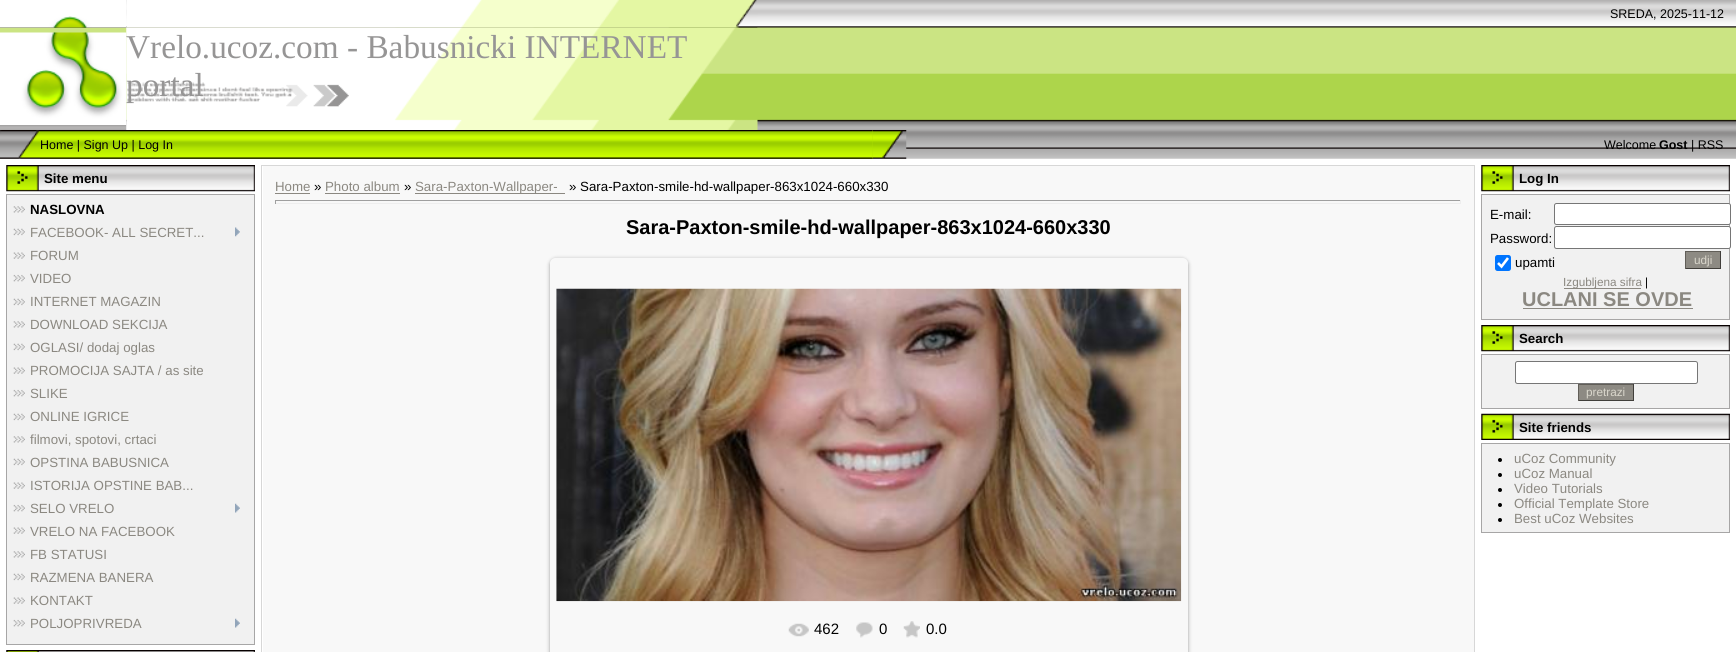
import math
import cairo

surface = cairo.ImageSurface(cairo.FORMAT_RGB24, 1736, 652)
c = cairo.Context(surface)
options = cairo.FontOptions()
options.set_hint_metrics(cairo.HINT_METRICS_OFF)
options.set_hint_style(cairo.HINT_STYLE_NONE)
c.set_font_options(options)
c.set_miter_limit(4)
def C(code):
 c.set_source_rgb(*(v / 255 for v in bytes.fromhex(code[-6:])))
def F(family, size, italic, bold):
 c.select_font_face(family, cairo.FONT_SLANT_ITALIC if italic else cairo.FONT_SLANT_NORMAL, cairo.FONT_WEIGHT_BOLD if bold else cairo.FONT_WEIGHT_NORMAL)
 c.set_font_size(size)
def T(x, y, s):
 c.move_to(x, y)
 c.show_text(s)
def R(x, y, w, h):
 c.rectangle(x, y, w, h)
 c.fill()
def Q(x, y, w, h, r):
 c.new_sub_path()
 for i, (u, v) in enumerate([(x + w - r, y + h - r), (x + r, y + h - r), (x + r, y + r), (x + w - r, y + r)]):
  c.arc(u, v, r, i * math.pi / 2, (i + 1) * math.pi / 2)
 c.close_path()
def S(x, y, w, h, r, blur, alpha):
 c.push_group_with_content(cairo.CONTENT_ALPHA)
 c.set_operator(cairo.OPERATOR_SOURCE)
 for i in range(15, -16, -2):
  e = blur * i / 6
  if min(w, h) + 2 * e > 0:
   c.set_source_rgba(0, 0, 0, alpha * math.erfc((i - 1) / 8.5) / 2)
   Q(x - e, y - e, w + 2 * e, h + 2 * e, max(0, min(r + e + blur * .6, min(w, h) / 2 + e)))
   c.fill()
 c.mask(c.pop_group())
def I(path, x, y, w, h):
 c.save()
 c.set_source_surface(cairo.ImageSurface.create_from_png(path), x, y)
 c.rectangle(x, y, w, h)
 c.fill()
 c.restore()
C('ffffff')
c.paint()
I('1.png',0,0,1736,159)
I('5.png',126,27,632,103)
I('2.png',0,0,127,28)
I('3.png',126,0,632,28)
F('Liberation Sans',12.5,0,0)
C('000000')
T(1610,18,'SREDA, 2025-11-12')
I('4.png',0,32,127,93)
F('Liberation Serif',33.3,0,0)
C('969595')
T(126,58,'Vrelo.ucoz.com - Babusnicki INTERNET')
T(126,96,'portal')
I('6.png',0,130,40,29)
C('b0e300')
R(40,130,833,29)
I('7.png',40,130,833,29)
F('Liberation Sans',12.5,0,0)
C('000000')
T(40,149,'Home | Sign Up | Log In')
I('8.png',872,130,35,29)
T(1604,149,'Welcome')
F('Liberation Sans',12.5,0,1)
T(1659,149,'Gost')
F('Liberation Sans',12.5,0,0)
T(1691,149,'| RSS')
I('9.png',6,165,249,27)
F('Liberation Sans',13.3,0,1)
T(44,183,'Site menu')
C('f1f1f1')
c.rectangle(6.5,194.5,248,450)
c.fill_preserve()
C('a7a6a6')
c.set_line_width(1)
c.stroke()
I('10.png',13,206,12,7)
C('000000')
T(30,214,'NASLOVNA')
I('11.png',13,228,12,8)
F('Liberation Sans',13.3,0,0)
C('8b8881')
T(30,237,'FACEBOOK- ALL SECRET...')
I('12.png',235,227,5,10)
I('13.png',13,252,12,7)
T(30,260,'FORUM')
I('14.png',13,274,12,8)
T(30,283,'VIDEO')
I('11.png',13,298,12,8)
T(30,306,'INTERNET MAGAZIN')
I('10.png',13,321,12,7)
T(30,329,'DOWNLOAD SEKCIJA')
I('11.png',13,343,12,8)
T(30,352,'OGLASI/ dodaj oglas')
I('13.png',13,367,12,7)
T(30,375,'PROMOCIJA SAJTA / as site')
I('14.png',13,389,12,8)
T(30,398,'SLIKE')
I('11.png',13,413,12,8)
T(30,421,'ONLINE IGRICE')
I('10.png',13,436,12,7)
T(30,444,'filmovi, spotovi, crtaci')
I('11.png',13,458,12,8)
T(30,467,'OPSTINA BABUSNICA')
I('13.png',13,482,12,7)
T(30,490,'ISTORIJA OPSTINE BAB...')
I('14.png',13,504,12,8)
T(30,513,'SELO VRELO')
I('15.png',235,503,5,10)
I('13.png',13,527,12,7)
T(30,536,'VRELO NA FACEBOOK')
I('10.png',13,551,12,7)
T(30,559,'FB STATUSI')
I('11.png',13,573,12,8)
T(30,582,'RAZMENA BANERA')
I('13.png',13,597,12,7)
T(30,605,'KONTAKT')
I('14.png',13,619,12,8)
T(30,628,'POLJOPRIVREDA')
I('15.png',235,618,5,10)
I('16.png',6,650,249,2)
c.rectangle(261.5,165.5,1213,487)
C('d7d7d7')
c.stroke()
C('f8f8f8')
R(263,166,1211,486)
C('8b8881')
T(275,191,'Home')
R(275,193,35,1)
C('000000')
T(314,191,'»')
C('8b8881')
T(325,191,'Photo album')
R(325,193,75,1)
C('000000')
T(404,191,'»')
C('8b8881')
R(415,193,150,1)
T(415,191,'Sara-Paxton-Wallpaper-')
C('000000')
T(569,191,'» Sara-Paxton-smile-hd-wallpaper-863x1024-660x330')
C('9f9f9f')
R(275,200,1186,1)
C('eeeeee')
R(1460,200,1,4)
R(275,203,1186,1)
C('9f9f9f')
R(275,200,1,4)
F('Liberation Sans',20,0,1)
C('000000')
T(626,234,'Sara-Paxton-smile-hd-wallpaper-863x1024-660x330')
c.save()
c.set_fill_rule(cairo.FILL_RULE_EVEN_ODD)
c.new_path()
c.move_to(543,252)
c.line_to(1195,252)
c.line_to(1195,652)
c.line_to(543,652)
c.close_path()
c.move_to(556,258)
c.line_to(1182,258)
c.curve_to(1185.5,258,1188,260.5,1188,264)
c.line_to(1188,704)
c.curve_to(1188,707.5,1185.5,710,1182,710)
c.line_to(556,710)
c.curve_to(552.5,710,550,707.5,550,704)
c.line_to(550,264)
c.curve_to(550,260.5,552.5,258,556,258)
c.close_path()
c.clip()
C('000000')
S(550,259,638,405,6,2,.37)
c.restore()
I('17.png',556,288,626,314)
I('18.png',788,623,21,14)
F('Liberation Sans',15,0,0)
T(814,634,'462')
I('19.png',856,622,17,16)
T(879,634,'0')
I('20.png',903,621,17,17)
T(926,634,'0.0')
I('9.png',1481,165,249,27)
F('Liberation Sans',13.3,0,1)
T(1519,183,'Log In')
C('f1f1f1')
c.rectangle(1481.5,194.5,248,125)
c.fill_preserve()
C('a7a6a6')
c.stroke()
F('Liberation Sans',13.3,0,0)
C('000000')
T(1490,219,'E-mail:')
C('ffffff')
Q(1554.5,203.5,176,21,2)
c.fill_preserve()
C('767676')
c.stroke()
C('000000')
T(1490,243,'Password:')
C('ffffff')
Q(1554.5,226.5,176,22,2)
c.fill_preserve()
C('767676')
c.stroke()
C('0075ff')
Q(1495,255,16,16,2.5)
c.fill()
c.new_path()
c.move_to(1498,263)
c.line_to(1501.5,266.5)
c.line_to(1508,258)
C('ffffff')
c.set_line_width(2.6)
c.stroke()
C('000000')
T(1515,267,'upamti')
C('8d8a83')
R(1686,252,34,16)
C('615e58')
R(1685,251,36,1)
C('413f3b')
R(1720,251,1,18)
R(1685,268,36,1)
C('615e58')
R(1685,251,1,18)
F('Liberation Sans',11.75,0,0)
C('dad7cc')
T(1694,264,'udji')
C('8b8881')
R(1564,288,77,1)
T(1563,286,'Izgubljena sifra')
C('000000')
T(1645,286,'|')
F('Liberation Sans',20,0,1)
C('8b8881')
T(1522,306,'UCLANI SE OVDE')
R(1523,308,170,1)
I('9.png',1481,325,249,27)
F('Liberation Sans',13.3,0,1)
C('000000')
T(1519,343,'Search')
C('f1f1f1')
c.rectangle(1481.5,354.5,248,54)
c.fill_preserve()
C('a7a6a6')
c.set_line_width(1)
c.stroke()
C('ffffff')
Q(1515.5,361.5,182,22,2)
c.fill_preserve()
C('767676')
c.stroke()
C('8d8a83')
R(1579,385,54,15)
C('615e58')
R(1578,384,56,1)
C('413f3b')
R(1633,384,1,17)
R(1578,400,56,1)
C('615e58')
R(1578,384,1,17)
F('Liberation Sans',11.75,0,0)
C('dad7cc')
T(1586,396,'pretrazi')
I('21.png',1481,413,249,27)
F('Liberation Sans',13.3,0,1)
C('000000')
T(1519,432,'Site friends')
C('f1f1f1')
c.rectangle(1481.5,443.5,248,89)
c.fill_preserve()
C('a7a6a6')
c.stroke()
C('000000')
c.arc(1500,460,2,0,2 * math.pi)
c.fill()
F('Liberation Sans',13.3,0,0)
C('8b8881')
T(1514,463,'uCoz Community')
C('000000')
c.new_path()
c.arc(1500,475,2,0,2 * math.pi)
c.fill()
C('8b8881')
T(1514,478,'uCoz Manual')
C('000000')
c.new_path()
c.arc(1500,490,2,0,2 * math.pi)
c.fill()
C('8b8881')
T(1514,493,'Video Tutorials')
C('000000')
c.new_path()
c.arc(1500,505,2,0,2 * math.pi)
c.fill()
C('8b8881')
T(1514,508,'Official Template Store')
C('000000')
c.new_path()
c.arc(1500,520,2,0,2 * math.pi)
c.fill()
C('8b8881')
T(1514,523,'Best uCoz Websites')
surface.write_to_png('o.png')
